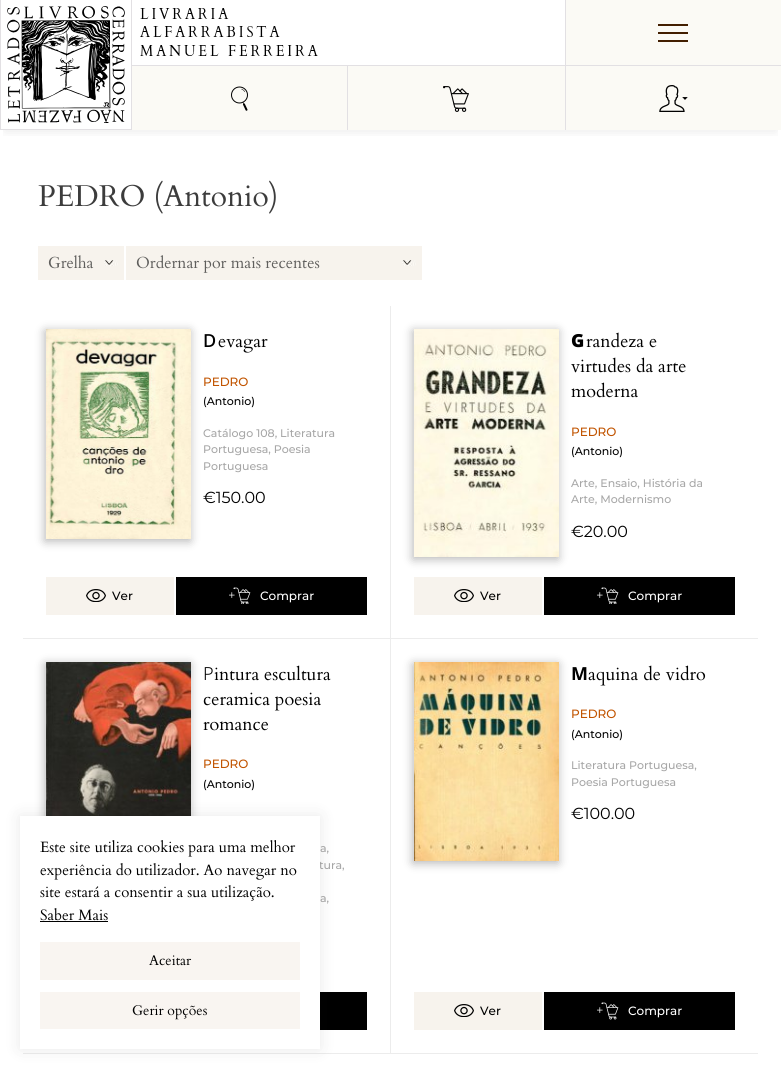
import math
import cairo

surface = cairo.ImageSurface(cairo.FORMAT_RGB24, 781, 1074)
c = cairo.Context(surface)
options = cairo.FontOptions()
options.set_hint_metrics(cairo.HINT_METRICS_OFF)
options.set_hint_style(cairo.HINT_STYLE_NONE)
c.set_font_options(options)
c.set_miter_limit(4)
def C(code):
 c.set_source_rgb(*(v / 255 for v in bytes.fromhex(code[-6:])))
def F(family, size, italic, bold):
 c.select_font_face(family, cairo.FONT_SLANT_ITALIC if italic else cairo.FONT_SLANT_NORMAL, cairo.FONT_WEIGHT_BOLD if bold else cairo.FONT_WEIGHT_NORMAL)
 c.set_font_size(size)
def T(x, y, s):
 c.move_to(x, y)
 c.show_text(s)
def R(x, y, w, h):
 c.rectangle(x, y, w, h)
 c.fill()
def Q(x, y, w, h, r):
 c.new_sub_path()
 for i, (u, v) in enumerate([(x + w - r, y + h - r), (x + r, y + h - r), (x + r, y + r), (x + w - r, y + r)]):
  c.arc(u, v, r, i * math.pi / 2, (i + 1) * math.pi / 2)
 c.close_path()
def S(x, y, w, h, r, blur, alpha):
 c.push_group_with_content(cairo.CONTENT_ALPHA)
 c.set_operator(cairo.OPERATOR_SOURCE)
 for i in range(15, -16, -2):
  e = blur * i / 6
  if min(w, h) + 2 * e > 0:
   c.set_source_rgba(0, 0, 0, alpha * math.erfc((i - 1) / 8.5) / 2)
   Q(x - e, y - e, w + 2 * e, h + 2 * e, max(0, min(r + e + blur * .6, min(w, h) / 2 + e)))
   c.fill()
 c.mask(c.pop_group())
def I(path, x, y, w, h):
 c.save()
 c.set_source_surface(cairo.ImageSurface.create_from_png(path), x, y)
 c.rectangle(x, y, w, h)
 c.fill()
 c.restore()
C('ffffff')
c.paint()
c.save()
c.rectangle(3,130,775,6)
c.clip()
C('1e1e1e')
S(5,11,771,120,0,6,.1)
c.restore()
C('e2e0e3')
R(0,129,131,1)
R(0,0,1,130)
I('1.png',7,6,118,117)
R(131,0,1,130)
I('2.png',140,8,178,48)
C('fbfaf5')
R(566,0,215,65)
C('421e00')
R(658,24,30,2)
R(658,40,30,2)
R(658,32,30,2)
C('e2e0e3')
R(565,0,1,65)
C('fbfaf5')
R(132,66,215,64)
C('e2e0e3')
R(132,65,649,1)
R(347,65,1,65)
I('3.png',231,86,17,25)
C('fbfaf5')
R(348,66,217,64)
I('4.png',443,86,26,26)
R(566,66,215,64)
C('e2e0e3')
R(565,65,1,65)
I('5.png',659,85,29,27)
F('Cardo',30,0,0)
C('3c3c3c')
T(38,206,'PEDRO (Antonio)')
C('f7f3ed')
R(38,246,86,34)
I('6.png',104,260,14,6)
F('Cardo',16,0,0)
C('5f5e5c')
T(48,268,'Grelha')
C('f7f3ed')
R(126,246,296,34)
I('6.png',402,260,14,6)
C('5f5e5c')
T(136,268,'Ordernar por mais recentes')
C('ececec')
R(390,306,1,748)
R(23,638,735,1)
C('000000')
S(45,331,145,210,0,5,.3)
I('7.png',46,329,145,210)
F('Noto Sans Medium',18,0,0)
C('000000')
T(203,347,'D')
F('Cardo',18,0,0)
T(218,347,'evagar')
F('Montserrat Medium',12,0,0)
C('c15400')
T(203,386,'PEDRO')
F('Montserrat Medium',11,0,0)
C('000000')
T(203,405,'(Antonio)')
C('a7a7a7')
T(203,437,'Catálogo 108, Literatura')
T(203,453,'Portuguesa, Poesia')
T(203,470,'Portuguesa')
F('Montserrat',16,0,0)
C('000000')
T(203,503,'€150.00')
C('f7f3ed')
R(46,577,128,38)
I('8.png',86,589,20,13)
F('Montserrat Medium',12,0,0)
C('000000')
T(112,600,'Ver')
R(176,577,191,38)
I('9.png',229,587,22,17)
C('ffffff')
T(260,600,'Comprar')
C('000000')
S(413,331,145,228,0,5,.3)
I('10.png',414,329,145,228)
F('Noto Sans Black',18,0,0)
C('000000')
T(571,347,'G')
F('Cardo',18,0,0)
T(586,347,'randeza e')
T(571,372,'virtudes da arte')
T(571,397,'moderna')
F('Montserrat Medium',12,0,0)
C('c15400')
T(571,436,'PEDRO')
F('Montserrat Medium',11,0,0)
C('000000')
T(571,455,'(Antonio)')
C('a7a7a7')
T(571,487,'Arte, Ensaio, História da')
T(571,503,'Arte, Modernismo')
F('Montserrat',16,0,0)
C('000000')
T(571,537,'€20.00')
C('f7f3ed')
R(414,577,128,38)
I('8.png',454,589,20,13)
F('Montserrat Medium',12,0,0)
C('000000')
T(480,600,'Ver')
R(544,577,191,38)
I('9.png',597,587,22,17)
C('ffffff')
T(628,600,'Comprar')
C('ececec')
R(23,1053,735,1)
C('000000')
S(45,664,145,172,0,5,.3)
I('11.png',46,662,145,154)
F('Noto Sans Light',18,0,0)
C('000000')
T(203,680,'P')
F('Cardo',18,0,0)
T(214,680,'intura escultura')
T(203,705,'ceramica poesia')
T(203,730,'romance')
F('Montserrat Medium',12,0,0)
C('c15400')
T(203,768,'PEDRO')
F('Montserrat Medium',11,0,0)
C('000000')
T(203,788,'(Antonio)')
C('a7a7a7')
T(320,852,'a,')
T(319,869,'tura,')
T(320,902,'a,')
C('000000')
R(320,992,47,38)
C('000000')
S(413,664,145,199,0,5,.3)
I('12.png',414,662,145,199)
F('Noto Sans',18,0,1)
C('000000')
T(571,680,'M')
F('Cardo',18,0,0)
T(588,680,'aquina de vidro')
F('Montserrat Medium',12,0,0)
C('c15400')
T(571,718,'PEDRO')
F('Montserrat Medium',11,0,0)
C('000000')
T(571,738,'(Antonio)')
C('a7a7a7')
T(571,769,'Literatura Portuguesa,')
T(571,786,'Poesia Portuguesa')
F('Montserrat',16,0,0)
C('000000')
T(571,819,'€100.00')
C('f7f3ed')
R(414,992,128,38)
I('8.png',454,1004,20,13)
F('Montserrat Medium',12,0,0)
C('000000')
T(480,1015,'Ver')
R(544,992,191,38)
I('13.png',597,1002,22,18)
C('ffffff')
T(628,1015,'Comprar')
C('1e1e1e')
S(20,816,300,233,0,7.5,.1)
C('ffffff')
R(20,816,300,233)
F('Cardo',15,0,0)
C('000000')
T(40,852,'Este site utiliza cookies para uma melhor')
T(40,875,'experiência do utilizador. Ao navegar no')
T(40,897,'site estará a consentir a sua utilização.')
T(40,920,'Saber Mais')
R(40,921,68,1)
C('f9f5f1')
R(40,942,260,38)
F('Cardo',14,0,0)
C('000000')
T(149,965,'Aceitar')
C('f9f5f1')
R(40,992,260,37)
C('000000')
T(132,1015,'Gerir opções')
surface.write_to_png('o.png')
